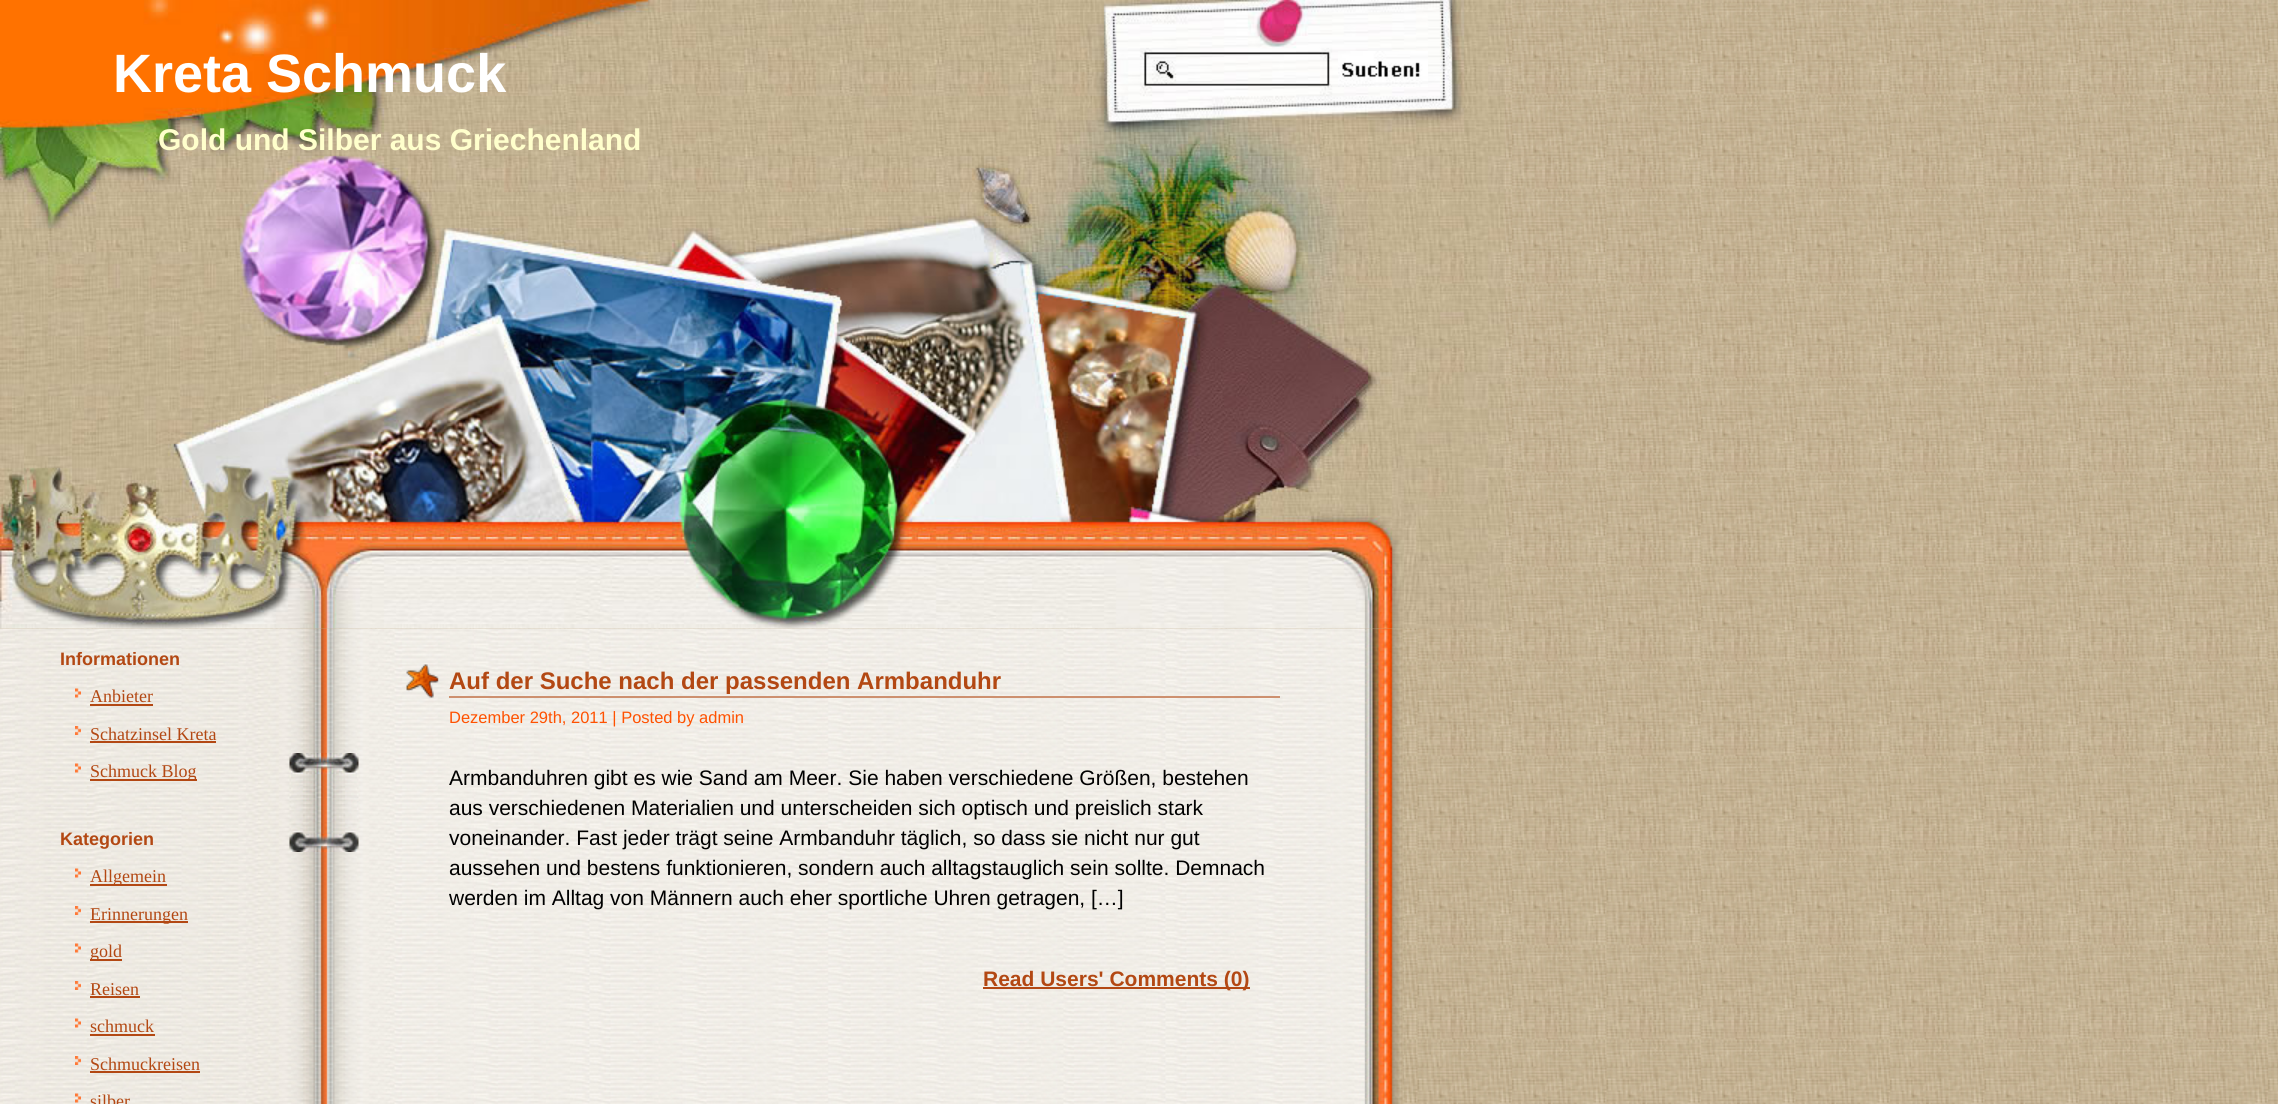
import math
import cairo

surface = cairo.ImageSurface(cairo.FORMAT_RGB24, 2278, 1104)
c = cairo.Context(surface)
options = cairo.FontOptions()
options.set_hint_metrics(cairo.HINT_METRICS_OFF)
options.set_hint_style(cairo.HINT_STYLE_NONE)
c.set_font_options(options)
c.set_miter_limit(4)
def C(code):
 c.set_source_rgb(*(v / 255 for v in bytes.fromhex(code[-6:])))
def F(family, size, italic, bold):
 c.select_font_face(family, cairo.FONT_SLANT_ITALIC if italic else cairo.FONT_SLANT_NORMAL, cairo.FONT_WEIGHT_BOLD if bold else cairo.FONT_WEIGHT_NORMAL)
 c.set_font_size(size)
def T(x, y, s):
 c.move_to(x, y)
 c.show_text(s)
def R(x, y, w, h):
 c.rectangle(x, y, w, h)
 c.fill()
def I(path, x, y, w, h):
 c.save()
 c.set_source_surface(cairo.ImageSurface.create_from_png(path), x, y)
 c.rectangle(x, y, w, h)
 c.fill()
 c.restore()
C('ffffff')
c.paint()
I('1.png',0,0,2278,1104)
I('2.png',0,0,1505,629)
F('Liberation Sans',54,0,1)
C('ffffff')
T(113,92,'Kreta Schmuck')
F('Liberation Sans',30,0,1)
C('ffffcc')
T(158,150,'Gold und Silber aus Griechenland')
I('3.png',1338,51,90,36)
I('4.png',0,628,1403,476)
F('Liberation Sans',18,0,1)
C('b34813')
T(60,665,'Informationen')
I('5.png',75,688,6,10)
F('Liberation Serif',18,0,0)
T(90,702,'Anbieter')
R(90,704,63,2)
I('6.png',75,726,6,9)
T(90,740,'Schatzinsel Kreta')
R(90,741,126,2)
I('7.png',75,763,6,10)
R(90,779,107,2)
T(90,777,'Schmuck Blog')
F('Liberation Sans',18,0,1)
T(60,845,'Kategorien')
I('8.png',75,868,6,10)
R(90,884,77,2)
F('Liberation Serif',18,0,0)
T(90,882,'Allgemein')
I('6.png',75,906,6,9)
R(90,921,98,2)
T(90,920,'Erinnerungen')
I('7.png',75,943,6,10)
R(90,959,32,2)
T(90,957,'gold')
I('9.png',75,981,6,9)
T(90,995,'Reisen')
R(90,996,50,2)
I('10.png',75,1018,6,10)
T(90,1032,'schmuck')
R(90,1034,65,2)
I('11.png',75,1056,6,9)
T(90,1070,'Schmuckreisen')
R(90,1071,110,2)
I('12.png',75,1093,6,10)
T(90,1107,'silber')
I('13.png',289,753,70,99)
I('14.png',406,664,33,34)
F('Liberation Sans',24,0,1)
T(449,689,'Auf der Suche nach der passenden Armbanduhr')
C('cd906f')
R(449,696,831,2)
F('Liberation Sans',16.5,0,0)
C('ff5100')
T(449,723,'Dezember 29th, 2011 | Posted by admin')
F('Liberation Sans',21,0,0)
C('000000')
T(449,785,'Armbanduhren gibt es wie Sand am Meer. Sie haben verschiedene Größen, bestehen')
T(449,815,'aus verschiedenen Materialien und unterscheiden sich optisch und preislich stark')
T(449,845,'voneinander. Fast jeder trägt seine Armbanduhr täglich, so dass sie nicht nur gut')
T(449,875,'aussehen und bestens funktionieren, sondern auch alltagstauglich sein sollte. Demnach')
T(449,905,'werden im Alltag von Männern auch eher sportliche Uhren getragen, […]')
C('b34813')
R(983,987,267,2)
F('Liberation Sans',21,0,1)
T(983,986,'Read Users\' Comments (0)')
surface.write_to_png('o.png')
